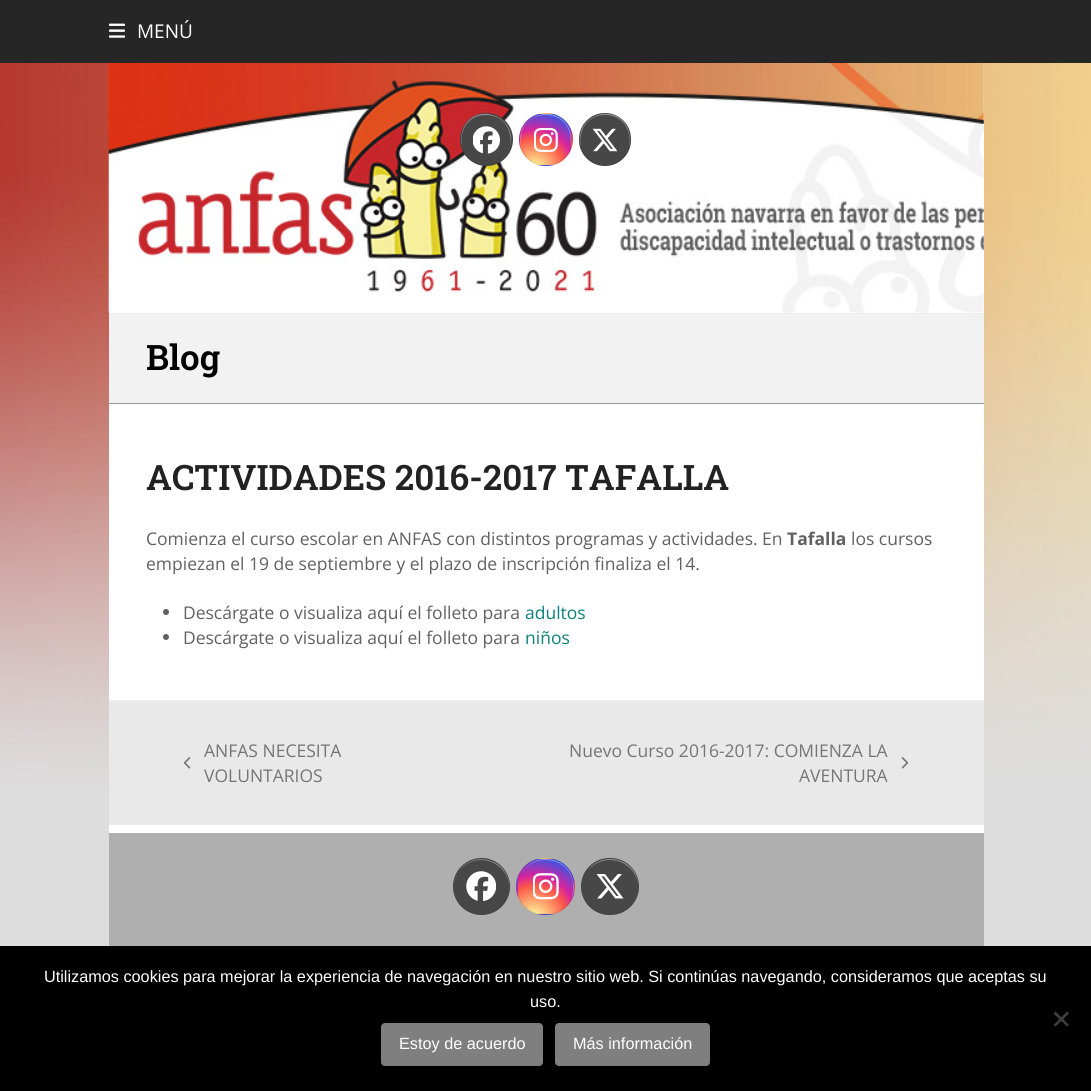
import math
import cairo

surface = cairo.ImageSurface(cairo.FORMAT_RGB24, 1091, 1091)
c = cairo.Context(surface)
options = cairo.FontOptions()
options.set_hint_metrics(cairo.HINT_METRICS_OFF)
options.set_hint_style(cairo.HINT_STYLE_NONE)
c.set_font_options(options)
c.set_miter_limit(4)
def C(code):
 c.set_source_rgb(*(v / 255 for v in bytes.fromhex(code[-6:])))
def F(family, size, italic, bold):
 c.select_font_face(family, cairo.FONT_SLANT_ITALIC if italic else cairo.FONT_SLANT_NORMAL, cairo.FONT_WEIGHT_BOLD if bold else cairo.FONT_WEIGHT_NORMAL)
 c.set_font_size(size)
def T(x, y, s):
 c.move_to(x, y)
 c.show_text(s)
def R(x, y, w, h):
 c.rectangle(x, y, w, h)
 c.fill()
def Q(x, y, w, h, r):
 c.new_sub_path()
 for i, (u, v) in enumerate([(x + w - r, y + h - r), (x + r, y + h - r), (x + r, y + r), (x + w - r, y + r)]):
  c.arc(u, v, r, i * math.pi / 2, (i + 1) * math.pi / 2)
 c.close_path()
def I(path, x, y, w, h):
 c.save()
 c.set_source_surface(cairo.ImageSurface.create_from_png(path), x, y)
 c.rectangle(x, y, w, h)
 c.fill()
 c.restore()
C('ffffff')
c.paint()
I('1.png',0,63,1091,883)
C('262626')
R(0,0,1091,63)
I('2.png',109,23,16,15)
F('Open Sans',19,0,0)
C('ffffff')
T(137,38,'MENÚ')
R(109,63,875,770)
I('3.png',108,63,876,250)
C('474747')
c.arc(486.5,139.5,26.5,0,2 * math.pi)
c.fill()
c.set_source_rgba(1,1,1,0.4)
c.new_path()
c.move_to(486,115)
c.curve_to(505,115,513,132,510,147)
c.curve_to(519,116,475,100,463,129)
c.curve_to(461,135,460,141,462,147)
c.curve_to(459,132,467,115,486,115)
c.close_path()
c.fill()
c.arc(486.5,139.5,26,0,2 * math.pi)
c.set_source_rgba(0,0,0,0.1)
c.set_line_width(1)
c.stroke()
I('4.png',473,126,27,28)
c.save()
Q(519,113,54,53,26.5)
c.clip()
gradient = cairo.RadialGradient(535,117,0,535,117,66)
gradient.add_color_stop_rgba(0,0.992,0.957,0.592,1)
gradient.add_color_stop_rgba(.05,0.992,0.957,0.592,1)
gradient.add_color_stop_rgba(.45,0.992,0.349,0.286,1)
gradient.add_color_stop_rgba(.6,0.839,0.141,0.624,1)
gradient.add_color_stop_rgba(.9,0.157,0.353,0.922,1)
c.set_source(gradient)
R(538,113,16,1)
gradient = cairo.RadialGradient(484,169,0,484,169,66)
gradient.add_color_stop_rgba(0,0.992,0.957,0.592,1)
gradient.add_color_stop_rgba(.05,0.992,0.957,0.592,1)
gradient.add_color_stop_rgba(.45,0.992,0.349,0.286,1)
gradient.add_color_stop_rgba(.6,0.839,0.141,0.624,1)
gradient.add_color_stop_rgba(.9,0.157,0.353,0.922,1)
c.set_source(gradient)
R(519,132,1,15)
gradient = cairo.RadialGradient(535,169,0,535,169,66)
gradient.add_color_stop_rgba(0,0.992,0.957,0.592,1)
gradient.add_color_stop_rgba(.05,0.992,0.957,0.592,1)
gradient.add_color_stop_rgba(.45,0.992,0.349,0.286,1)
gradient.add_color_stop_rgba(.6,0.839,0.141,0.624,1)
gradient.add_color_stop_rgba(.9,0.157,0.353,0.922,1)
c.set_source(gradient)
R(520,114,51,51)
gradient = cairo.RadialGradient(587,169,0,587,169,66)
gradient.add_color_stop_rgba(0,0.992,0.957,0.592,1)
gradient.add_color_stop_rgba(.05,0.992,0.957,0.592,1)
gradient.add_color_stop_rgba(.45,0.992,0.349,0.286,1)
gradient.add_color_stop_rgba(.6,0.839,0.141,0.624,1)
gradient.add_color_stop_rgba(.9,0.157,0.353,0.922,1)
c.set_source(gradient)
R(571,129,2,21)
gradient = cairo.RadialGradient(535,220,0,535,220,66)
gradient.add_color_stop_rgba(0,0.992,0.957,0.592,1)
gradient.add_color_stop_rgba(.05,0.992,0.957,0.592,1)
gradient.add_color_stop_rgba(.45,0.992,0.349,0.286,1)
gradient.add_color_stop_rgba(.6,0.839,0.141,0.624,1)
gradient.add_color_stop_rgba(.9,0.157,0.353,0.922,1)
c.set_source(gradient)
R(538,165,16,1)
c.restore()
c.set_source_rgba(1,1,1,0.4)
c.new_path()
c.move_to(546,115)
c.curve_to(564,115,573,131,570,145)
c.curve_to(572,138,571,131,567,125)
c.curve_to(550,100,511,121,522,149)
c.curve_to(517,134,525,115,546,115)
c.close_path()
c.fill()
Q(519.5,113.5,53,52,26)
c.set_source_rgba(0,0,0,0.1)
c.stroke()
I('5.png',534,127,24,25)
C('474747')
Q(579,113,52,53,26)
c.fill()
C('919191')
c.new_path()
c.move_to(605,115)
c.curve_to(624,115,632,132,629,147)
c.curve_to(631,141,630,135,628,129)
c.curve_to(616,100,572,116,581,147)
c.curve_to(578,132,586,115,605,115)
c.close_path()
c.fill()
Q(579.5,113.5,51,52,25.5)
c.set_source_rgba(0,0,0,0.1)
c.stroke()
I('6.png',592,128,26,24)
C('f2f2f2')
R(109,314,875,89)
C('eeeeee')
R(109,313,875,1)
C('9b9b9b')
R(109,403,875,1)
F('Roboto Slab SemiBold',35,0,0)
C('000000')
T(146,370,'Blog')
C('222222')
T(146,490,'ACTIVIDADES 2016-2017 TAFALLA')
F('Open Sans',17.5,0,0)
C('616161')
T(146,545,'Comienza el curso escolar en ANFAS con distintos programas y actividades. En')
F('Open Sans',17.5,0,1)
T(787,545,'Tafalla')
F('Open Sans',17.5,0,0)
T(851,545,'los cursos')
T(146,570,'empiezan el 19 de septiembre y el plazo de inscripción finaliza el 14.')
c.new_path()
c.arc(166,612,3,0,2 * math.pi)
c.fill()
T(183,619,'Descárgate o visualiza aquí el folleto para')
C('0c817c')
T(525,619,'adultos')
C('616161')
c.new_path()
c.arc(166,637,3,0,2 * math.pi)
c.fill()
T(183,644,'Descárgate o visualiza aquí el folleto para')
C('0c817c')
T(525,644,'niños')
C('e9e9e9')
R(109,701,875,124)
C('eeeeee')
R(109,700,875,1)
C('757575')
T(204,757,'ANFAS NECESITA')
I('7.png',184,757,7,12)
T(204,782,'VOLUNTARIOS')
T(569,757,'Nuevo Curso 2016-2017: COMIENZA LA')
I('8.png',901,757,8,12)
T(799,782,'AVENTURA')
C('afafaf')
R(109,833,875,113)
C('474747')
c.new_path()
c.arc(481.5,886.5,28.5,0,2 * math.pi)
c.fill()
C('919191')
c.new_path()
c.move_to(481,860)
c.curve_to(496,860,509,872,509,887)
c.curve_to(510,860,474,849,459,871)
c.curve_to(456,876,454,882,454,887)
c.curve_to(454,872,466,860,481,860)
c.close_path()
c.fill()
c.arc(481.5,886.5,28,0,2 * math.pi)
c.set_source_rgba(0,0,0,0.1)
c.stroke()
I('9.png',466,871,30,30)
c.save()
Q(516,858,59,57,28.5)
c.clip()
gradient = cairo.RadialGradient(534,863,0,534,863,71)
gradient.add_color_stop_rgba(0,0.992,0.957,0.592,1)
gradient.add_color_stop_rgba(.05,0.992,0.957,0.592,1)
gradient.add_color_stop_rgba(.45,0.992,0.349,0.286,1)
gradient.add_color_stop_rgba(.6,0.839,0.141,0.624,1)
gradient.add_color_stop_rgba(.9,0.157,0.353,0.922,1)
c.set_source(gradient)
R(537,858,17,1)
gradient = cairo.RadialGradient(478,918,0,478,918,71)
gradient.add_color_stop_rgba(0,0.992,0.957,0.592,1)
gradient.add_color_stop_rgba(.05,0.992,0.957,0.592,1)
gradient.add_color_stop_rgba(.45,0.992,0.349,0.286,1)
gradient.add_color_stop_rgba(.6,0.839,0.141,0.624,1)
gradient.add_color_stop_rgba(.9,0.157,0.353,0.922,1)
c.set_source(gradient)
R(516,876,2,21)
gradient = cairo.RadialGradient(534,918,0,534,918,71)
gradient.add_color_stop_rgba(0,0.992,0.957,0.592,1)
gradient.add_color_stop_rgba(.05,0.992,0.957,0.592,1)
gradient.add_color_stop_rgba(.45,0.992,0.349,0.286,1)
gradient.add_color_stop_rgba(.6,0.839,0.141,0.624,1)
gradient.add_color_stop_rgba(.9,0.157,0.353,0.922,1)
c.set_source(gradient)
R(518,859,56,55)
gradient = cairo.RadialGradient(591,918,0,591,918,71)
gradient.add_color_stop_rgba(0,0.992,0.957,0.592,1)
gradient.add_color_stop_rgba(.05,0.992,0.957,0.592,1)
gradient.add_color_stop_rgba(.45,0.992,0.349,0.286,1)
gradient.add_color_stop_rgba(.6,0.839,0.141,0.624,1)
gradient.add_color_stop_rgba(.9,0.157,0.353,0.922,1)
c.set_source(gradient)
R(574,879,1,15)
gradient = cairo.RadialGradient(534,973,0,534,973,71)
gradient.add_color_stop_rgba(0,0.992,0.957,0.592,1)
gradient.add_color_stop_rgba(.05,0.992,0.957,0.592,1)
gradient.add_color_stop_rgba(.45,0.992,0.349,0.286,1)
gradient.add_color_stop_rgba(.6,0.839,0.141,0.624,1)
gradient.add_color_stop_rgba(.9,0.157,0.353,0.922,1)
c.set_source(gradient)
R(537,914,17,1)
c.restore()
c.set_source_rgba(1,1,1,0.4)
c.new_path()
c.move_to(545,860)
c.curve_to(569,860,578,882,571,898)
c.curve_to(574,893,575,887,573,881)
c.curve_to(568,855,532,851,521,875)
c.curve_to(525,866,534,860,545,860)
c.close_path()
c.fill()
Q(516.5,858.5,58,56,28)
c.set_source_rgba(0,0,0,0.1)
c.stroke()
I('10.png',533,873,26,27)
C('474747')
Q(581,858,58,57,28.5)
c.fill()
C('919191')
c.new_path()
c.move_to(610,860)
c.curve_to(625,860,638,872,638,887)
c.curve_to(639,860,604,849,588,870)
c.curve_to(594,864,601,860,610,860)
c.close_path()
c.fill()
Q(581.5,858.5,57,56,28)
c.set_source_rgba(0,0,0,0.1)
c.stroke()
I('11.png',596,874,28,25)
C('000000')
R(0,946,1091,145)
F('Liberation Sans',16.25,0,0)
C('ffffff')
T(44,982,'Utilizamos cookies para mejorar la experiencia de navegación en nuestro sitio web. Si continúas navegando, consideramos que aceptas su')
T(530,1007,'uso.')
C('404040')
c.new_path()
c.move_to(1067,1011.5)
c.line_to(1069,1013.5)
c.line_to(1055.5,1026.5)
c.line_to(1053.5,1025)
c.close_path()
c.fill()
c.new_path()
c.move_to(1053.5,1013.5)
c.line_to(1055.5,1011.5)
c.line_to(1069,1025)
c.line_to(1067,1026.5)
c.close_path()
c.fill()
C('7f7f7f')
Q(381,1023,162,43,4)
c.fill()
C('ffffff')
T(399,1049,'Estoy de acuerdo')
C('7f7f7f')
Q(555,1023,155,43,4)
c.fill()
C('ffffff')
T(573,1049,'Más información')
surface.write_to_png('o.png')
